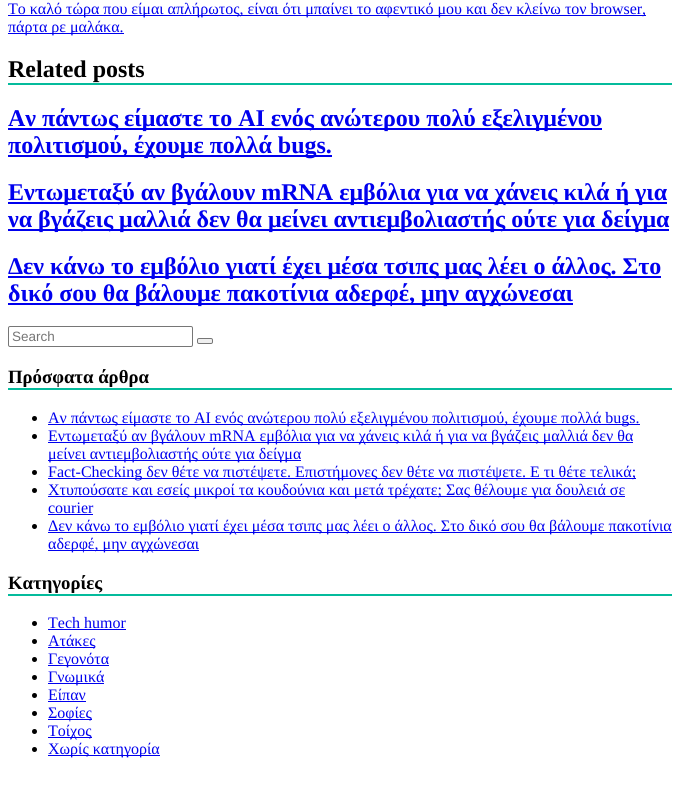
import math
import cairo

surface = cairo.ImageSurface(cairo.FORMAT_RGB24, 680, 791)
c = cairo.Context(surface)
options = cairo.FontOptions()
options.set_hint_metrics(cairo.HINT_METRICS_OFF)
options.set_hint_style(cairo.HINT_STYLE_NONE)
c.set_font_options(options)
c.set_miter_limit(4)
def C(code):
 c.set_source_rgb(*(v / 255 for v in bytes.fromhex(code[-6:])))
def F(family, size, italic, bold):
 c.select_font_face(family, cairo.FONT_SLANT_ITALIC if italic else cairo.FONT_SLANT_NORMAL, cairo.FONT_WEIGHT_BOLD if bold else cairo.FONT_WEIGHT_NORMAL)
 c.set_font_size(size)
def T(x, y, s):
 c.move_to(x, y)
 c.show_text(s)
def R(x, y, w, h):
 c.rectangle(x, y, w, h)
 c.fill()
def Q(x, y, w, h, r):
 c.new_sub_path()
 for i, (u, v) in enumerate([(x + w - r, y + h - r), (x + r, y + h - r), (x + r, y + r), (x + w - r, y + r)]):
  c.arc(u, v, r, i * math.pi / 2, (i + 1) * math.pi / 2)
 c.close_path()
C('ffffff')
c.paint()
C('0000ee')
R(8,15,638,1)
F('Liberation Serif',16,0,0)
T(8,14,'Το καλό τώρα που είμαι απλήρωτος, είναι ότι μπαίνει το αφεντικό μου και δεν κλείνω τον browser,')
R(8,33,116,1)
T(8,32,'πάρτα ρε μαλάκα.')
C('04bb9c')
R(8,83,664,2)
F('Liberation Serif',24,0,1)
C('000000')
T(8,77,'Related posts')
C('0000ee')
R(8,128,594,2)
T(8,126,'Αν πάντως είμαστε το AI ενός ανώτερου πολύ εξελιγμένου')
R(8,155,324,2)
T(8,153,'πολιτισμού, έχουμε πολλά bugs.')
R(8,202,659,2)
T(8,200,'Εντωμεταξύ αν βγάλουν mRNA εμβόλια για να χάνεις κιλά ή για')
R(8,229,661,2)
T(8,227,'να βγάζεις μαλλιά δεν θα μείνει αντιεμβολιαστής ούτε για δείγμα')
R(8,276,653,2)
T(8,274,'Δεν κάνω το εμβόλιο γιατί έχει μέσα τσιπς μας λέει ο άλλος. Στο')
R(8,303,565,2)
T(8,301,'δικό σου θα βάλουμε πακοτίνια αδερφέ, μην αγχώνεσαι')
Q(8.5,326.5,184,20,1.5)
C('767676')
c.set_line_width(1)
c.stroke()
F('Liberation Sans',13.5,0,0)
C('757575')
T(12,341,'Search')
C('efefef')
Q(197.5,338.5,15,5,1.5)
c.fill_preserve()
C('767676')
c.stroke()
C('04bb9c')
R(8,388,664,2)
F('Liberation Serif',18.75,0,1)
C('000000')
T(8,383,'Πρόσφατα άρθρα')
c.new_path()
c.arc(34.5,418.5,2.5,0,2 * math.pi)
c.fill()
C('0000ee')
R(48,424,592,1)
F('Liberation Serif',16,0,0)
T(48,423,'Αν πάντως είμαστε το AI ενός ανώτερου πολύ εξελιγμένου πολιτισμού, έχουμε πολλά bugs.')
C('000000')
c.new_path()
c.arc(34.5,436.5,2.5,0,2 * math.pi)
c.fill()
C('0000ee')
R(48,442,585,1)
T(48,441,'Εντωμεταξύ αν βγάλουν mRNA εμβόλια για να χάνεις κιλά ή για να βγάζεις μαλλιά δεν θα')
R(48,460,253,1)
T(48,459,'μείνει αντιεμβολιαστής ούτε για δείγμα')
C('000000')
c.new_path()
c.arc(34.5,472.5,2.5,0,2 * math.pi)
c.fill()
C('0000ee')
R(48,478,588,1)
T(48,477,'Fact-Checking δεν θέτε να πιστέψετε. Επιστήμονες δεν θέτε να πιστέψετε. Ε τι θέτε τελικά;')
C('000000')
c.new_path()
c.arc(34.5,490.5,2.5,0,2 * math.pi)
c.fill()
C('0000ee')
R(48,496,577,1)
T(48,495,'Χτυπούσατε και εσείς μικροί τα κουδούνια και μετά τρέχατε; Σας θέλουμε για δουλειά σε')
T(48,513,'courier')
R(48,514,45,1)
C('000000')
c.new_path()
c.arc(34.5,526.5,2.5,0,2 * math.pi)
c.fill()
C('0000ee')
R(48,532,624,1)
T(48,531,'Δεν κάνω το εμβόλιο γιατί έχει μέσα τσιπς μας λέει ο άλλος. Στο δικό σου θα βάλουμε πακοτίνια')
R(48,550,151,1)
T(48,549,'αδερφέ, μην αγχώνεσαι')
C('04bb9c')
R(8,594,664,2)
F('Liberation Serif',18.75,0,1)
C('000000')
T(8,589,'Kατηγορίες')
c.new_path()
c.arc(34.5,623.5,2.5,0,2 * math.pi)
c.fill()
F('Liberation Serif',16,0,0)
C('0000ee')
T(48,628,'Tech humor')
R(48,629,78,1)
C('000000')
c.new_path()
c.arc(34.5,641.5,2.5,0,2 * math.pi)
c.fill()
C('0000ee')
R(48,647,47,1)
T(48,646,'Ατάκες')
C('000000')
c.new_path()
c.arc(34.5,659.5,2.5,0,2 * math.pi)
c.fill()
C('0000ee')
R(48,665,61,1)
T(48,664,'Γεγονότα')
C('000000')
c.new_path()
c.arc(34.5,677.5,2.5,0,2 * math.pi)
c.fill()
C('0000ee')
R(48,683,56,1)
T(48,682,'Γνωμικά')
C('000000')
c.new_path()
c.arc(34.5,695.5,2.5,0,2 * math.pi)
c.fill()
C('0000ee')
T(48,700,'Είπαν')
R(48,701,38,1)
C('000000')
c.new_path()
c.arc(34.5,713.5,2.5,0,2 * math.pi)
c.fill()
C('0000ee')
R(48,719,44,1)
T(48,718,'Σοφίες')
C('000000')
c.new_path()
c.arc(34.5,731.5,2.5,0,2 * math.pi)
c.fill()
C('0000ee')
R(48,737,44,1)
T(48,736,'Τοίχος')
C('000000')
c.new_path()
c.arc(34.5,749.5,2.5,0,2 * math.pi)
c.fill()
C('0000ee')
R(48,755,112,1)
T(48,754,'Χωρίς κατηγορία')
surface.write_to_png('o.png')
